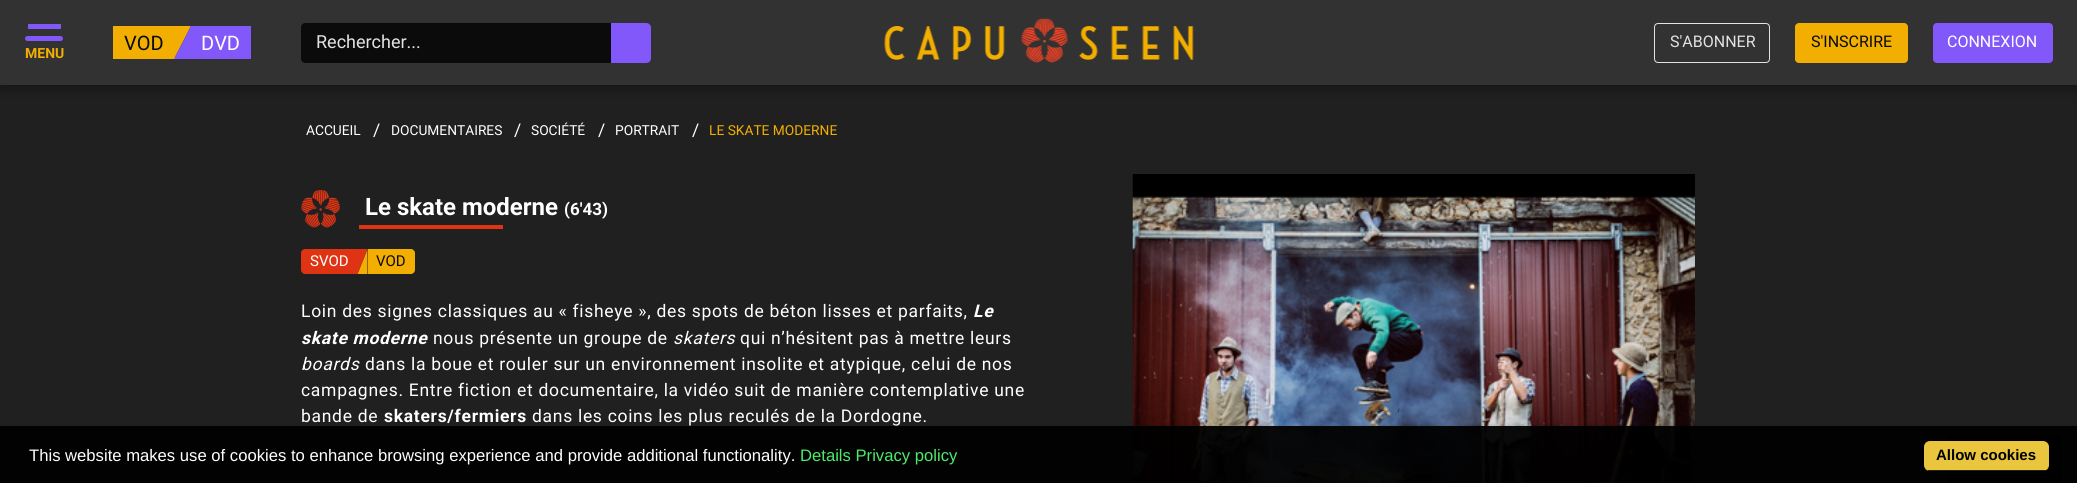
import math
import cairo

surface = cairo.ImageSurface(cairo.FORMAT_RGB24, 2077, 483)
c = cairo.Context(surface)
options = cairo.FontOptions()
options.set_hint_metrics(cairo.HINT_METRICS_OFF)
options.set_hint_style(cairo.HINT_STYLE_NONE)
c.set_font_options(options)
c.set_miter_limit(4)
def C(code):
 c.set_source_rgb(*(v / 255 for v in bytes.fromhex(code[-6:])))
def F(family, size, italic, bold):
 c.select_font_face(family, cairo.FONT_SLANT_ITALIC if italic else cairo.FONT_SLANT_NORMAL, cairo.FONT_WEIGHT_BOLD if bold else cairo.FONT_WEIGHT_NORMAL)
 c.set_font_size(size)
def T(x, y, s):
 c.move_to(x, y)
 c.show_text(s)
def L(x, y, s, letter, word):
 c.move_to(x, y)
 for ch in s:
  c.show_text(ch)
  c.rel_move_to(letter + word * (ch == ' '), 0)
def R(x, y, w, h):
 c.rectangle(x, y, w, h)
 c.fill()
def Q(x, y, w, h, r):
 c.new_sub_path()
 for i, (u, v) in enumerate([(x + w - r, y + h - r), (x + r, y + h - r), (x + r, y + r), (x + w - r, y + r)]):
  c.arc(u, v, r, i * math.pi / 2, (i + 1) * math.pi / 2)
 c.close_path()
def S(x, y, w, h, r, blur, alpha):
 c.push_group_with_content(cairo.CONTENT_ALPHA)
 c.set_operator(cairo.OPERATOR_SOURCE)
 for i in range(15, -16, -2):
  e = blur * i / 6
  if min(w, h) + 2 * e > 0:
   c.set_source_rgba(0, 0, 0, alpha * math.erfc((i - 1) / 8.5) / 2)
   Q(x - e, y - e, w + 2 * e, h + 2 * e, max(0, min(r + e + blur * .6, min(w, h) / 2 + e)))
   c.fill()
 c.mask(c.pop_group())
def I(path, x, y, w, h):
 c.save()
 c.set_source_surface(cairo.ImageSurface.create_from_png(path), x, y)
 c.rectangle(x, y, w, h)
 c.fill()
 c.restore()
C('202020')
c.paint()
C('000000')
S(-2,0,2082,90,0,5.5,.35)
C('323232')
R(0,0,2077,85)
C('f2af01')
R(113,26,62,33)
F('Roboto',20,0,0)
C('0b0b0b')
T(124,50,'VOD')
C('f2af01')
c.new_path()
c.move_to(174,59)
c.line_to(174,26)
c.line_to(191,26)
c.close_path()
c.fill()
C('8258fa')
R(190,26,61,33)
c.new_path()
c.move_to(191,26)
c.line_to(191,59)
c.line_to(174,59)
c.close_path()
c.fill()
C('ffffff')
T(201,50,'DVD')
C('0b0b0b')
c.new_path()
c.move_to(305,23)
c.line_to(611,23)
c.line_to(611,63)
c.line_to(305,63)
c.curve_to(303,63,301,61,301,59)
c.line_to(301,27)
c.curve_to(301,25,303,23,305,23)
c.close_path()
c.fill()
F('Roboto',18,0,0)
C('e2e2e2')
T(316,48,'Rechercher...')
C('8258fa')
c.new_path()
c.move_to(611,23)
c.line_to(646,23)
c.curve_to(649,23,651,25,651,28)
c.line_to(651,58)
c.curve_to(651,61,649,63,646,63)
c.line_to(611,63)
c.close_path()
c.fill()
R(28,24,33,5)
Q(25,36,38,5,2.5)
c.fill()
F('Roboto',14,0,1)
C('f2af01')
T(25,58,'MENU')
I('1.png',884,18,310,45)
Q(1654.5,23.5,115,39,3.5)
C('e2e2e2')
c.set_line_width(1)
c.stroke()
F('Roboto',16,0,0)
T(1670,47,'S\'ABONNER')
C('f2af01')
Q(1795.5,23.5,112,39,3.5)
c.fill_preserve()
c.stroke()
C('0b0b0b')
T(1811,47,'S\'INSCRIRE')
C('8258fa')
Q(1933.5,23.5,119,39,3.5)
c.fill_preserve()
c.stroke()
C('ffffff')
T(1947,47,'CONNEXION')
F('Roboto',13.75,0,0)
T(306,135,'ACCUEIL')
F('Roboto',17.5,0,0)
T(373,136,'/')
F('Roboto',13.75,0,0)
T(391,135,'DOCUMENTAIRES')
F('Roboto',17.5,0,0)
T(514,136,'/')
F('Roboto',13.75,0,0)
T(531,135,'SOCIÉTÉ')
F('Roboto',17.5,0,0)
T(598,136,'/')
F('Roboto',13.75,0,0)
T(615,135,'PORTRAIT')
F('Roboto',17.5,0,0)
T(692,136,'/')
F('Roboto',13.75,0,0)
C('f2af01')
T(709,135,'LE SKATE MODERNE')
I('2.png',301,190,39,38)
F('Roboto',24,0,1)
C('ffffff')
T(365,215,'Le skate moderne')
F('Roboto',17,0,1)
T(564,215,'(6\'43)')
C('de3414')
R(359,225,144,4)
C('f2af01')
c.new_path()
c.move_to(367.5,249)
c.line_to(367.5,274)
c.line_to(357.5,274)
c.close_path()
c.fill()
C('de3414')
c.new_path()
c.move_to(305,249)
c.line_to(358,249)
c.line_to(358,274)
c.line_to(305,274)
c.curve_to(303,274,301,272,301,270)
c.line_to(301,253)
c.curve_to(301,251,303,249,305,249)
c.close_path()
c.fill()
F('Roboto',15,0,0)
C('ffffff')
T(310,266,'SVOD')
C('de3414')
c.new_path()
c.move_to(357.5,274)
c.line_to(357.5,249)
c.line_to(367.5,249)
c.close_path()
c.fill()
C('f2af01')
c.new_path()
c.move_to(368,249)
c.line_to(411,249)
c.curve_to(413,249,415,251,415,253)
c.line_to(415,270)
c.curve_to(415,272,413,274,411,274)
c.line_to(368,274)
c.close_path()
c.fill()
C('0b0b0b')
T(376,266,'VOD')
F('Roboto',17.5,0,0)
C('ffffff')
L(301,317,'Loin des signes classiques au « fisheye », des spots de béton lisses et parfaits,',.7,0)
F('Roboto',17.5,1,1)
L(973,317,'Le',.7,0)
L(301,344,'skate moderne',.7,0)
F('Roboto',17.5,0,0)
L(433,344,'nous présente un groupe de',.7,0)
F('Roboto',17.5,1,0)
L(673,344,'skaters',.7,0)
F('Roboto',17.5,0,0)
L(740,344,'qui n’hésitent pas à mettre leurs',.7,0)
F('Roboto',17.5,1,0)
L(301,370,'boards',.7,0)
F('Roboto',17.5,0,0)
L(365,370,'dans la boue et rouler sur un environnement insolite et atypique, celui de nos',.7,0)
L(301,396,'campagnes. Entre fiction et documentaire, la vidéo suit de manière contemplative une',.7,0)
L(301,422,'bande de',.7,0)
F('Roboto',17.5,0,1)
L(384,422,'skaters/fermiers',.7,0)
F('Roboto',17.5,0,0)
L(532,422,'dans les coins les plus reculés de la Dordogne.',.7,0)
I('3.png',1132,174,563,309)
C('0a0a0a')
R(1948,435,113,48)
c.save()
c.set_fill_rule(cairo.FILL_RULE_EVEN_ODD)
c.new_path()
c.move_to(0,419)
c.line_to(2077,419)
c.line_to(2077,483)
c.line_to(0,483)
c.close_path()
c.move_to(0,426)
c.line_to(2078,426)
c.line_to(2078,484)
c.line_to(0,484)
c.close_path()
c.clip()
C('000000')
S(3,429,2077,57,0,3,.6)
c.restore()
c.set_source_rgba(0,0,0,0.95)
R(0,426,2077,57)
F('Liberation Sans',16.65,0,0)
C('ffffff')
T(29,461,'This website makes use of cookies to enhance browsing experience and provide additional functionality.')
C('4bec69')
T(800,461,'Details Privacy policy')
C('eac53e')
Q(1924,441,125,30,6)
c.fill()
C('222222')
R(1928,470,118,1)
F('Liberation Sans',15,0,1)
C('000000')
T(1936,460,'Allow cookies')
surface.write_to_png('o.png')
